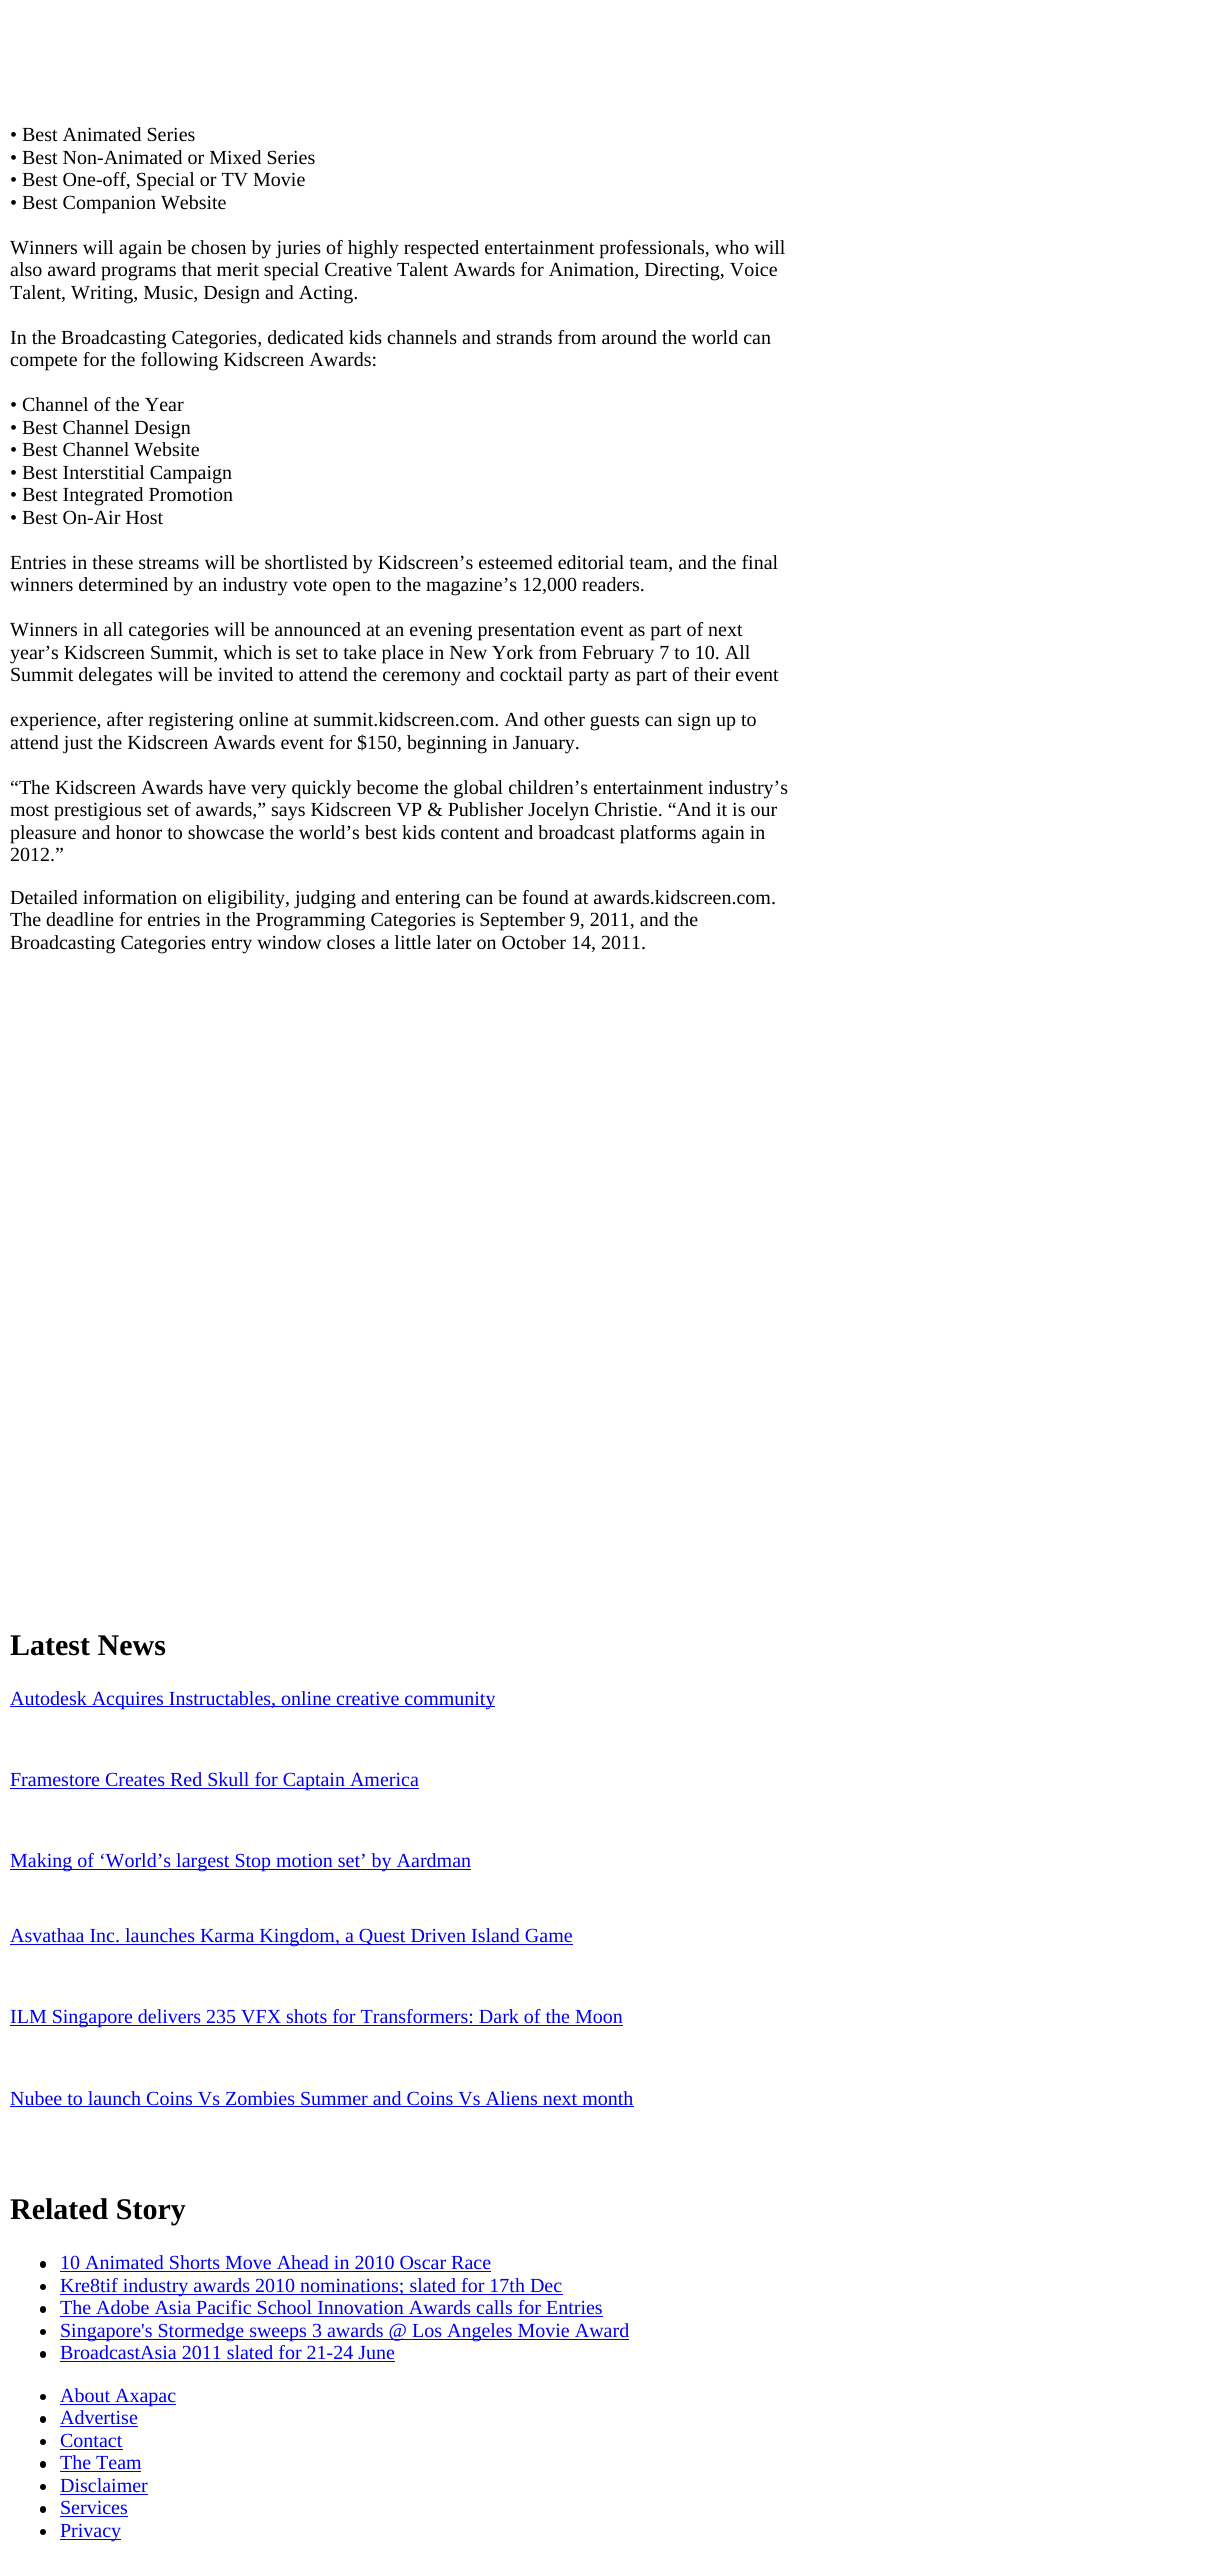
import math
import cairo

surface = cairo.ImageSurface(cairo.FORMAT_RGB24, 1224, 2562)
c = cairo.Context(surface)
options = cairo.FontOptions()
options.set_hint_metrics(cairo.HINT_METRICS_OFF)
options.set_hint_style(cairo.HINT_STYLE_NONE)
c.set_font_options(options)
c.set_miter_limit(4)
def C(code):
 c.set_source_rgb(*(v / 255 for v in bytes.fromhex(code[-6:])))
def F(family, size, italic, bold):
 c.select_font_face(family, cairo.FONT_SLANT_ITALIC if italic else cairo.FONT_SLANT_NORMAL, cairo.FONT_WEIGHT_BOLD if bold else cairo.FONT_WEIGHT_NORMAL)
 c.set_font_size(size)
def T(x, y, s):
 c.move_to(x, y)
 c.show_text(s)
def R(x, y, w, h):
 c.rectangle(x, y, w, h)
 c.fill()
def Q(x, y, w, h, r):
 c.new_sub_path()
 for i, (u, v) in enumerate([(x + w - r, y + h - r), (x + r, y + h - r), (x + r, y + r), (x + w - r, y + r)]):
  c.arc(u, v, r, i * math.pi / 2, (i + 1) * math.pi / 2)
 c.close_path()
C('ffffff')
c.paint()
F('Liberation Serif',20,0,0)
C('000000')
T(10,141,'• Best Animated Series')
T(10,164,'• Best Non-Animated or Mixed Series')
T(10,186,'• Best One-off, Special or TV Movie')
T(10,209,'• Best Companion Website')
T(10,254,'Winners will again be chosen by juries of highly respected entertainment professionals, who will')
T(10,276,'also award programs that merit special Creative Talent Awards for Animation, Directing, Voice')
T(10,299,'Talent, Writing, Music, Design and Acting.')
T(10,344,'In the Broadcasting Categories, dedicated kids channels and strands from around the world can')
T(10,366,'compete for the following Kidscreen Awards:')
T(10,411,'• Channel of the Year')
T(10,434,'• Best Channel Design')
T(10,456,'• Best Channel Website')
T(10,479,'• Best Interstitial Campaign')
T(10,501,'• Best Integrated Promotion')
T(10,524,'• Best On-Air Host')
T(10,569,'Entries in these streams will be shortlisted by Kidscreen’s esteemed editorial team, and the final')
T(10,591,'winners determined by an industry vote open to the magazine’s 12,000 readers.')
T(10,636,'Winners in all categories will be announced at an evening presentation event as part of next')
T(10,659,'year’s Kidscreen Summit, which is set to take place in New York from February 7 to 10. All')
T(10,681,'Summit delegates will be invited to attend the ceremony and cocktail party as part of their event')
T(10,726,'experience, after registering online at summit.kidscreen.com. And other guests can sign up to')
T(10,749,'attend just the Kidscreen Awards event for $150, beginning in January.')
T(10,794,'“The Kidscreen Awards have very quickly become the global children’s entertainment industry’s')
T(10,816,'most prestigious set of awards,” says Kidscreen VP & Publisher Jocelyn Christie. “And it is our')
T(10,839,'pleasure and honor to showcase the world’s best kids content and broadcast platforms again in')
T(10,861,'2012.”')
T(10,904,'Detailed information on eligibility, judging and entering can be found at awards.kidscreen.com.')
T(10,926,'The deadline for entries in the Programming Categories is September 9, 2011, and the')
T(10,949,'Broadcasting Categories entry window closes a little later on October 14, 2011.')
F('Liberation Serif',30,0,1)
T(10,1655,'Latest News')
C('0000ee')
R(10,1706,485,1)
F('Liberation Serif',20,0,0)
T(10,1705,'Autodesk Acquires Instructables, online creative community')
R(10,1788,409,1)
T(10,1786,'Framestore Creates Red Skull for Captain America')
R(10,1869,461,1)
T(10,1867,'Making of ‘World’s largest Stop motion set’ by Aardman')
R(10,1944,563,1)
T(10,1942,'Asvathaa Inc. launches Karma Kingdom, a Quest Driven Island Game')
R(10,2025,613,1)
T(10,2023,'ILM Singapore delivers 235 VFX shots for Transformers: Dark of the Moon')
T(10,2105,'Nubee to launch Coins Vs Zombies Summer and Coins Vs Aliens next month')
R(10,2106,624,1)
F('Liberation Serif',30,0,1)
C('000000')
T(10,2219,'Related Story')
Q(40,2261,6,7,3)
c.fill()
F('Liberation Serif',20,0,0)
C('0000ee')
T(60,2269,'10 Animated Shorts Move Ahead in 2010 Oscar Race')
R(60,2271,431,1)
C('000000')
c.new_path()
c.arc(43,2287,3,0,2 * math.pi)
c.fill()
C('0000ee')
R(60,2294,503,1)
T(60,2292,'Kre8tif industry awards 2010 nominations; slated for 17th Dec')
C('000000')
Q(40,2306,6,7,3)
c.fill()
C('0000ee')
T(60,2314,'The Adobe Asia Pacific School Innovation Awards calls for Entries')
R(60,2316,543,1)
C('000000')
c.new_path()
c.arc(43,2332,3,0,2 * math.pi)
c.fill()
C('0000ee')
R(60,2339,569,1)
T(60,2337,'Singapore\'s Stormedge sweeps 3 awards @ Los Angeles Movie Award')
C('000000')
Q(40,2351,6,7,3)
c.fill()
C('0000ee')
T(60,2359,'BroadcastAsia 2011 slated for 21-24 June')
R(60,2361,335,1)
C('000000')
c.new_path()
c.arc(43,2397,3,0,2 * math.pi)
c.fill()
C('0000ee')
R(60,2404,116,1)
T(60,2402,'About Axapac')
C('000000')
Q(40,2416,6,7,3)
c.fill()
C('0000ee')
T(60,2424,'Advertise')
R(60,2426,78,1)
C('000000')
c.new_path()
c.arc(43,2442,3,0,2 * math.pi)
c.fill()
C('0000ee')
T(60,2447,'Contact')
R(60,2449,63,1)
C('000000')
Q(40,2461,6,7,3)
c.fill()
C('0000ee')
T(60,2469,'The Team')
R(60,2471,81,1)
C('000000')
c.new_path()
c.arc(43,2487,3,0,2 * math.pi)
c.fill()
C('0000ee')
T(60,2492,'Disclaimer')
R(60,2494,88,1)
C('000000')
Q(40,2506,6,7,3)
c.fill()
C('0000ee')
T(60,2514,'Services')
R(60,2516,68,1)
C('000000')
c.new_path()
c.arc(43,2532,3,0,2 * math.pi)
c.fill()
C('0000ee')
R(60,2539,61,1)
T(60,2537,'Privacy')
surface.write_to_png('o.png')
